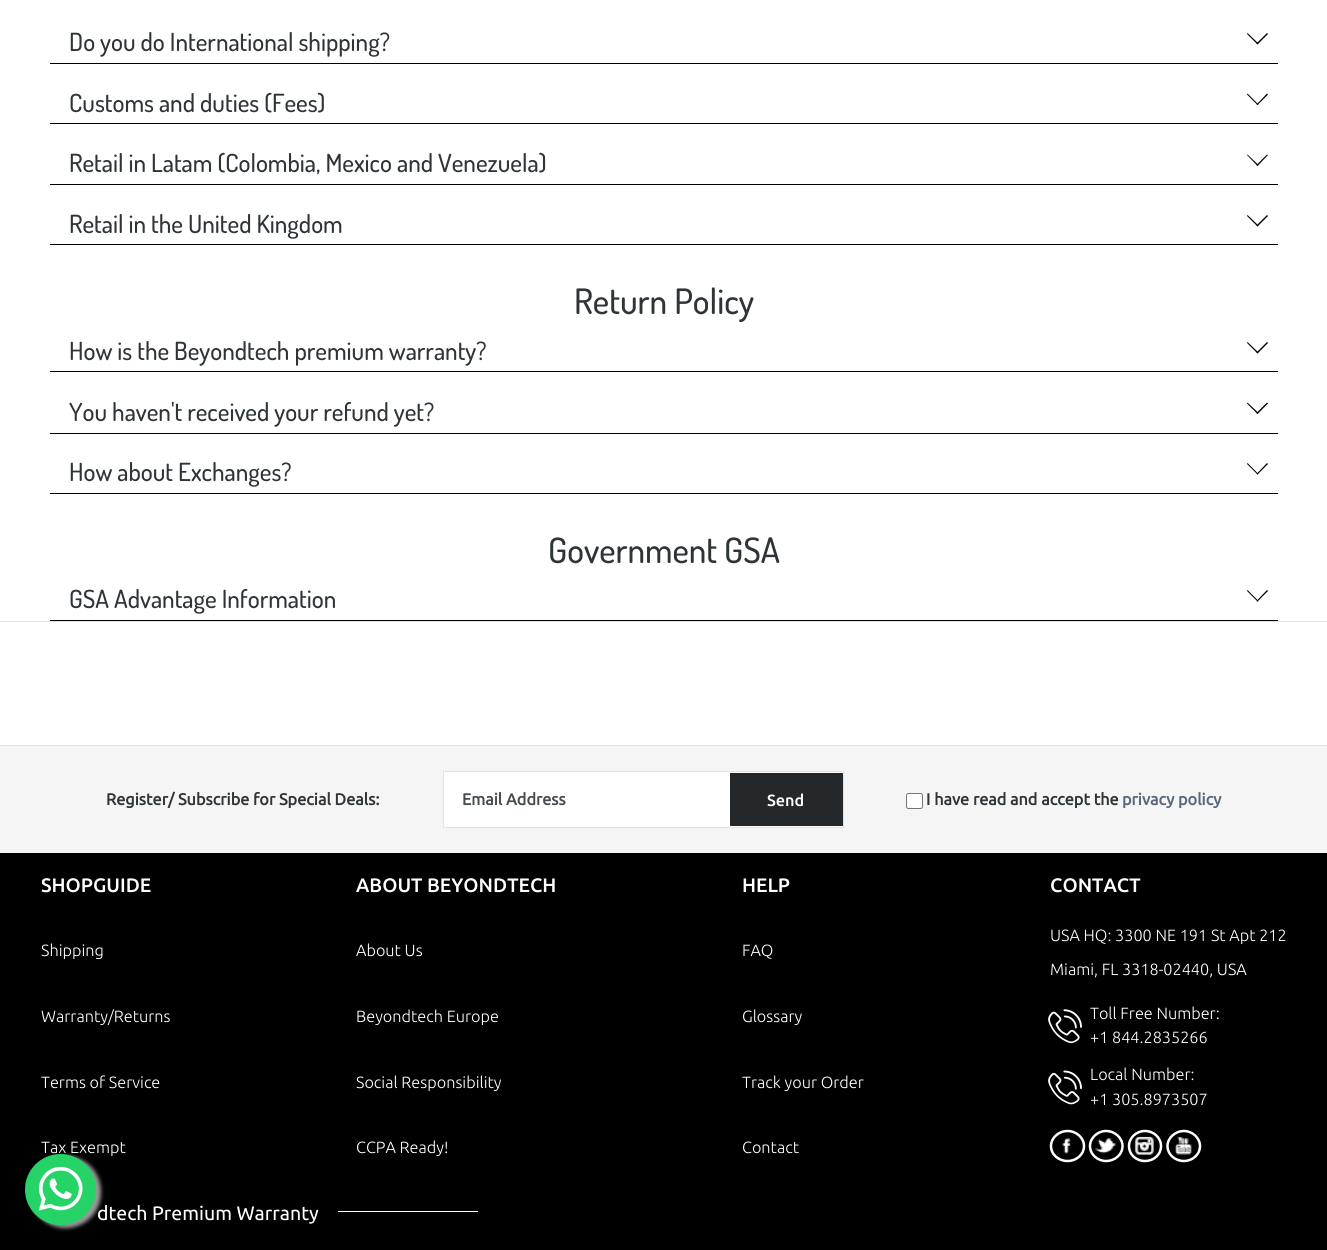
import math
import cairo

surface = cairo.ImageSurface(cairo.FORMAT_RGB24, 1327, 1250)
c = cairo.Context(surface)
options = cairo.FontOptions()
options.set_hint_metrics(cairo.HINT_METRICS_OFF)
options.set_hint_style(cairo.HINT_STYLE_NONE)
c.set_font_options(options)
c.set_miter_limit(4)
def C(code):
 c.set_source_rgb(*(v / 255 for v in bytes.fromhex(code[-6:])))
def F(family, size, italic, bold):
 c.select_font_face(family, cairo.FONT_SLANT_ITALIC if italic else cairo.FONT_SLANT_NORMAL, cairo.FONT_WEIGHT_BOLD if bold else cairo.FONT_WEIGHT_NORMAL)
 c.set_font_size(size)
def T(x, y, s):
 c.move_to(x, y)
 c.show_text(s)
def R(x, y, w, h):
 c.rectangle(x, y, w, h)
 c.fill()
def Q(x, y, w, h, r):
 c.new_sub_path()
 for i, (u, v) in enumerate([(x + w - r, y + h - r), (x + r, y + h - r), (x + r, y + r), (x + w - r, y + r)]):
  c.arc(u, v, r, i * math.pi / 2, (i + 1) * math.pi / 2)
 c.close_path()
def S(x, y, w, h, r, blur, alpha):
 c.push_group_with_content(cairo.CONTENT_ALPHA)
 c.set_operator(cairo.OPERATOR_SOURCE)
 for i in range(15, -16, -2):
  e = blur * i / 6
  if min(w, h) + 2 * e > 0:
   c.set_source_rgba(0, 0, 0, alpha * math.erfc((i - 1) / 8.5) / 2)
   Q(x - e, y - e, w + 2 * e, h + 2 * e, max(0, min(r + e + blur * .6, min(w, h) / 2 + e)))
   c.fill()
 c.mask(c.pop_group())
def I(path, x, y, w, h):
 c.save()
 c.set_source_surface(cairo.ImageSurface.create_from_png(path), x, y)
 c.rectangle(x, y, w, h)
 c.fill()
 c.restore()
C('ffffff')
c.paint()
C('000000')
R(50,63,1228,1)
F('Dosis Medium',25,0,0)
C('2e3438')
T(69,51,'Do you do International shipping?')
C('000000')
c.new_path()
c.move_to(1267,33)
c.line_to(1268,34)
c.line_to(1257.5,44.5)
c.line_to(1256.5,43.5)
c.close_path()
c.fill()
c.new_path()
c.move_to(1247.5,33)
c.line_to(1258.5,43.5)
c.line_to(1257.5,44.5)
c.line_to(1247,34)
c.close_path()
c.fill()
R(50,123,1228,1)
C('2e3438')
T(69,112,'Customs and duties (Fees)')
C('000000')
c.new_path()
c.move_to(1267,93.5)
c.line_to(1268,94.5)
c.line_to(1257.5,105)
c.line_to(1256.5,104.5)
c.close_path()
c.fill()
c.new_path()
c.move_to(1247.5,93.5)
c.line_to(1258.5,104.5)
c.line_to(1257.5,105)
c.line_to(1247,94.5)
c.close_path()
c.fill()
R(50,184,1228,1)
C('2e3438')
T(69,172,'Retail in Latam (Colombia, Mexico and Venezuela)')
C('000000')
c.new_path()
c.move_to(1267,154.5)
c.line_to(1268,155)
c.line_to(1257.5,166)
c.line_to(1256.5,165)
c.close_path()
c.fill()
c.new_path()
c.move_to(1247.5,154.5)
c.line_to(1258.5,165)
c.line_to(1257.5,166)
c.line_to(1247,155)
c.close_path()
c.fill()
R(50,244,1228,1)
C('2e3438')
T(69,233,'Retail in the United Kingdom')
C('000000')
c.new_path()
c.move_to(1267,215)
c.line_to(1268,216)
c.line_to(1257.5,226.5)
c.line_to(1256.5,225.5)
c.close_path()
c.fill()
c.new_path()
c.move_to(1247.5,215)
c.line_to(1258.5,225.5)
c.line_to(1257.5,226.5)
c.line_to(1247,216)
c.close_path()
c.fill()
F('Dosis Medium',35,0,0)
C('2e3438')
T(574,314,'Return Policy')
C('000000')
R(50,371,1228,1)
F('Dosis Medium',25,0,0)
C('2e3438')
T(69,360,'How is the Beyondtech premium warranty?')
C('000000')
c.new_path()
c.move_to(1267,342)
c.line_to(1268,343)
c.line_to(1257.5,353.5)
c.line_to(1256.5,352.5)
c.close_path()
c.fill()
c.new_path()
c.move_to(1247.5,342)
c.line_to(1258.5,352.5)
c.line_to(1257.5,353.5)
c.line_to(1247,343)
c.close_path()
c.fill()
R(50,433,1228,1)
C('2e3438')
T(69,421,'You haven\'t received your refund yet?')
C('000000')
c.new_path()
c.move_to(1267,402.5)
c.line_to(1268,403.5)
c.line_to(1257.5,414)
c.line_to(1256.5,413)
c.close_path()
c.fill()
c.new_path()
c.move_to(1247.5,402.5)
c.line_to(1258.5,413)
c.line_to(1257.5,414)
c.line_to(1247,403.5)
c.close_path()
c.fill()
R(50,493,1228,1)
C('2e3438')
T(69,481,'How about Exchanges?')
C('000000')
c.new_path()
c.move_to(1267,463)
c.line_to(1268,464)
c.line_to(1257.5,474.5)
c.line_to(1256.5,474)
c.close_path()
c.fill()
c.new_path()
c.move_to(1247.5,463)
c.line_to(1258.5,474)
c.line_to(1257.5,474.5)
c.line_to(1247,464)
c.close_path()
c.fill()
F('Dosis Medium',35,0,0)
C('2e3438')
T(548,563,'Government GSA')
C('000000')
R(50,620,1228,1)
F('Dosis Medium',25,0,0)
C('2e3438')
T(69,608,'GSA Advantage Information')
C('000000')
c.new_path()
c.move_to(1267,590)
c.line_to(1268,591)
c.line_to(1257.5,601.5)
c.line_to(1256.5,601)
c.close_path()
c.fill()
c.new_path()
c.move_to(1247.5,590)
c.line_to(1258.5,601)
c.line_to(1257.5,601.5)
c.line_to(1247,591)
c.close_path()
c.fill()
C('e3e3e3')
R(0,621,1327,1)
C('f5f5f5')
R(0,746,1327,107)
C('e3e3e3')
R(0,745,1327,1)
F('Ubuntu',16.25,0,1)
C('2e3438')
T(106,805,'Register/ Subscribe for Special Deals:')
C('ffffff')
c.rectangle(443.5,771.5,400,56)
c.fill_preserve()
C('e3e3e3')
c.set_line_width(1)
c.stroke()
F('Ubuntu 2',16.25,0,1)
C('464c50')
T(462,805,'Email Address')
C('25282a')
R(730,773,113,53)
F('Ubuntu Medium',16.25,0,0)
C('ffffff')
T(767,806,'Send')
Q(906.5,793.5,16,15,2)
c.fill_preserve()
C('767676')
c.stroke()
F('Ubuntu',16.25,0,1)
C('2e3438')
T(926,805,'I have read and accept the')
C('5a6578')
T(1122,805,'privacy policy')
C('000000')
R(0,853,1327,397)
F('Ubuntu Medium',19.5,0,0)
C('ffffff')
T(41,892,'SHOPGUIDE')
F('Ubuntu Light',16.25,0,0)
T(41,956,'Shipping')
T(41,1022,'Warranty/Returns')
T(41,1088,'Terms of Service')
T(41,1153,'Tax Exempt')
F('Ubuntu Medium',19.5,0,0)
T(356,892,'ABOUT BEYONDTECH')
F('Ubuntu Light',16.25,0,0)
T(356,956,'About Us')
T(356,1022,'Beyondtech Europe')
T(356,1088,'Social Responsibility')
T(356,1153,'CCPA Ready!')
F('Ubuntu Medium',19.5,0,0)
T(742,892,'HELP')
F('Ubuntu Light',16.25,0,0)
T(742,956,'FAQ')
T(742,1022,'Glossary')
T(742,1088,'Track your Order')
T(742,1153,'Contact')
F('Ubuntu Medium',19.5,0,0)
T(1050,892,'CONTACT')
F('Ubuntu Light',16.25,0,0)
T(1050,941,'USA HQ: 3300 NE 191 St Apt 212')
T(1050,975,'Miami, FL 3318-02440, USA')
I('1.png',1048,1009,34,35)
T(1090,1019,'Toll Free Number:')
T(1090,1043,'+1 844.2835266')
I('2.png',1048,1070,34,35)
T(1090,1080,'Local Number:')
T(1090,1105,'+1 305.8973507')
I('3.png',1062,1138,23,16)
c.new_path()
c.move_to(1067.5,1131)
c.curve_to(1076.5,1131,1084,1138,1084,1146)
c.curve_to(1084,1154.5,1076.5,1161,1067.5,1161)
c.curve_to(1058.5,1161,1051,1154.5,1051,1146)
c.curve_to(1051,1138,1058.5,1131,1067.5,1131)
c.close_path()
c.set_line_width(2.5)
c.stroke()
I('4.png',1095,1138,22,16)
c.new_path()
c.move_to(1106,1131)
c.curve_to(1115,1131,1122.5,1138,1122.5,1146)
c.curve_to(1122.5,1154.5,1115,1161,1106,1161)
c.curve_to(1097.5,1161,1090,1154.5,1090,1146)
c.curve_to(1090,1138,1097.5,1131,1106,1131)
c.close_path()
c.stroke()
I('5.png',1134,1136,20,19)
c.new_path()
c.move_to(1145,1131)
c.curve_to(1154,1131,1161,1138,1161,1146)
c.curve_to(1161,1154.5,1154,1161,1145,1161)
c.curve_to(1136,1161,1129,1154.5,1129,1146)
c.curve_to(1129,1138,1136,1131,1145,1131)
c.close_path()
c.stroke()
I('6.png',1175,1136,17,19)
c.new_path()
c.move_to(1184,1131)
c.curve_to(1192.5,1131,1200,1138,1200,1146)
c.curve_to(1200,1154.5,1192.5,1161,1184,1161)
c.curve_to(1175,1161,1167.5,1154.5,1167.5,1146)
c.curve_to(1167.5,1138,1175,1131,1184,1131)
c.close_path()
c.stroke()
F('Ubuntu',19.5,0,0)
T(97,1220,'dtech Premium Warranty')
R(338,1211,140,1)
C('999999')
S(30,1156,71,72,35.5,2,1)
C('25d366')
c.arc(60.5,1189.5,35.5,0,2 * math.pi)
c.fill()
I('7.png',38,1166,45,45)
surface.write_to_png('o.png')
